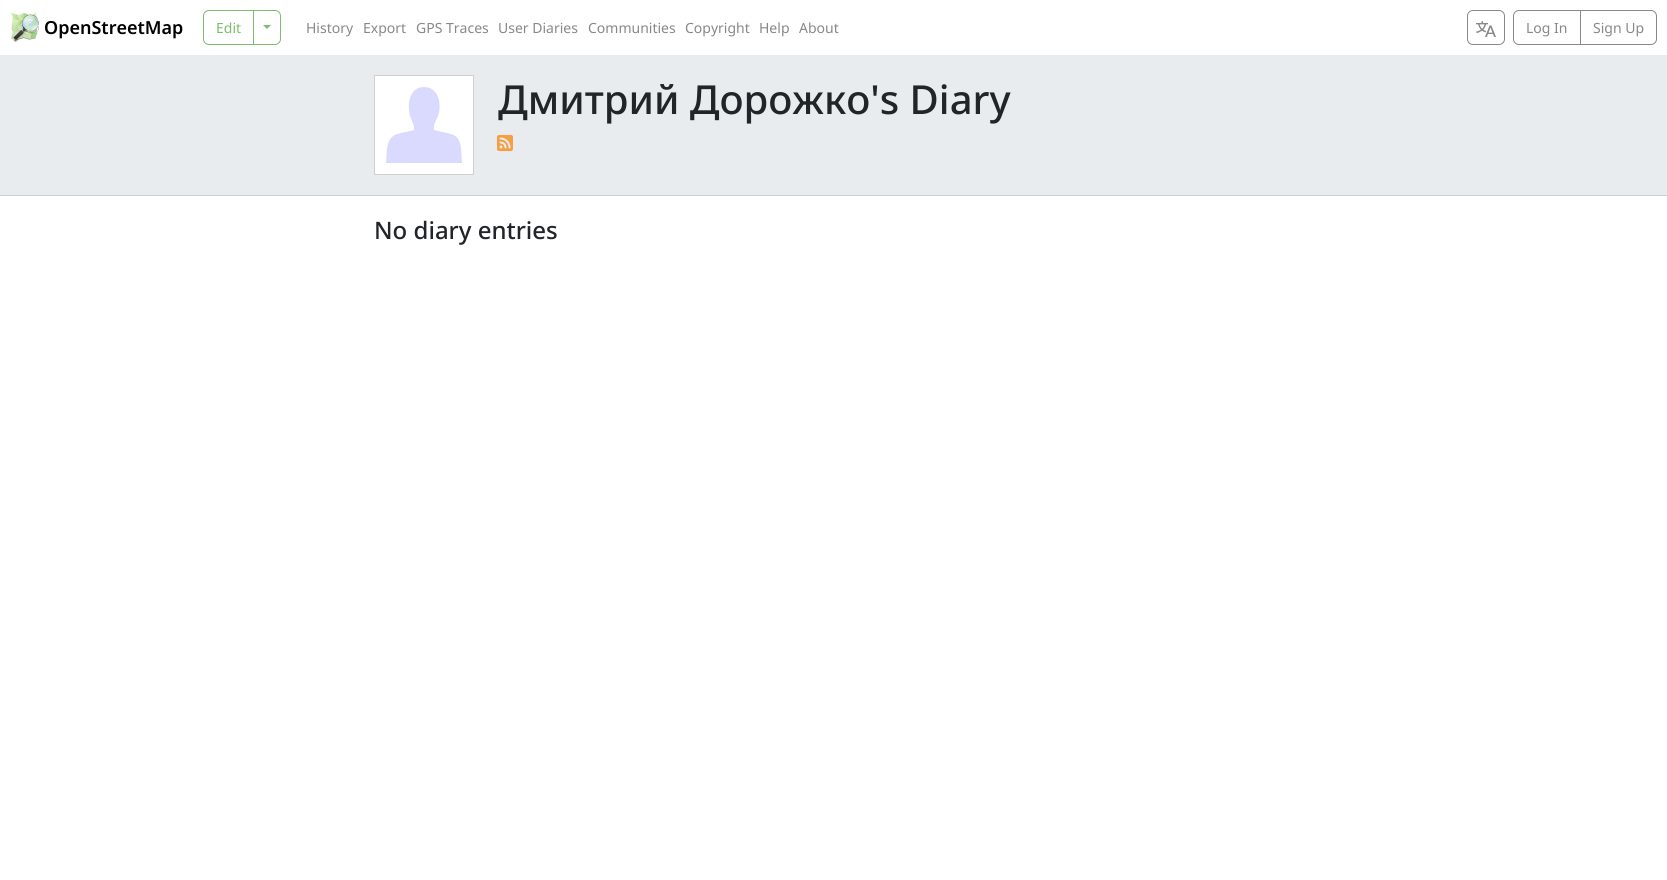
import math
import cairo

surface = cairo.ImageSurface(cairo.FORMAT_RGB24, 1667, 880)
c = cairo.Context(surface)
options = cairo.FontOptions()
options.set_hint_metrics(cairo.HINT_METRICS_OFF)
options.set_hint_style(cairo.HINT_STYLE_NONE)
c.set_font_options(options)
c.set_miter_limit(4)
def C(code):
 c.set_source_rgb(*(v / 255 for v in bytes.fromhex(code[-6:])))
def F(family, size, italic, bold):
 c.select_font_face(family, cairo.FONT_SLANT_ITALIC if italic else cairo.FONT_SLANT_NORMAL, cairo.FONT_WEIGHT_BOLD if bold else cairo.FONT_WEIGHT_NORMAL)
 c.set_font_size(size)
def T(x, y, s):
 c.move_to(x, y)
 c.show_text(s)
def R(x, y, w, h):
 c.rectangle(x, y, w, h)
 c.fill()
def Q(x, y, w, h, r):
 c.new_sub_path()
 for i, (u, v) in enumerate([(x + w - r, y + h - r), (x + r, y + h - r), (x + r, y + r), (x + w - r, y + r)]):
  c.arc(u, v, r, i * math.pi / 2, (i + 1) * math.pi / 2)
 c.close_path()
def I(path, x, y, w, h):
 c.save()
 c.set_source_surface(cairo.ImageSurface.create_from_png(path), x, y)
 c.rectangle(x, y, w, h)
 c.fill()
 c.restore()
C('ffffff')
c.paint()
I('1.png',11,13,28,29)
F('Noto Sans SemiBold',18,0,0)
C('000000')
T(44,34,'OpenStreetMap')
c.new_path()
c.move_to(209,10.5)
c.line_to(253.5,10.5)
c.line_to(253.5,44.5)
c.line_to(209,44.5)
c.curve_to(206,44.5,203.5,42,203.5,39)
c.line_to(203.5,16)
c.curve_to(203.5,13,206,10.5,209,10.5)
c.close_path()
C('7ebc6f')
c.set_line_width(1)
c.stroke()
F('Noto Sans',14,0,0)
T(216,33,'Edit')
c.new_path()
c.move_to(253.5,10.5)
c.line_to(275,10.5)
c.curve_to(278,10.5,280.5,13,280.5,16)
c.line_to(280.5,39)
c.curve_to(280.5,42,278,44.5,275,44.5)
c.line_to(253.5,44.5)
c.close_path()
c.stroke()
c.new_path()
c.move_to(263,25)
c.line_to(271,25)
c.line_to(267,29)
c.close_path()
c.fill()
C('888888')
T(306,33,'History')
T(363,33,'Export')
T(416,33,'GPS Traces')
T(498,33,'User Diaries')
T(588,33,'Communities')
T(685,33,'Copyright')
T(759,33,'Help')
T(799,33,'About')
Q(1467.5,10.5,37,34,5.5)
c.stroke()
I('2.png',1476,21,20,16)
c.new_path()
c.move_to(1519,10.5)
c.line_to(1580.5,10.5)
c.line_to(1580.5,44.5)
c.line_to(1519,44.5)
c.curve_to(1516,44.5,1513.5,42,1513.5,39)
c.line_to(1513.5,16)
c.curve_to(1513.5,13,1516,10.5,1519,10.5)
c.close_path()
c.stroke()
T(1526,33,'Log In')
c.new_path()
c.move_to(1580.5,10.5)
c.line_to(1651,10.5)
c.curve_to(1654,10.5,1656.5,13,1656.5,16)
c.line_to(1656.5,39)
c.curve_to(1656.5,42,1654,44.5,1651,44.5)
c.line_to(1580.5,44.5)
c.close_path()
c.stroke()
T(1593,33,'Sign Up')
C('e9ecef')
R(0,55,1667,140)
C('cfcfcf')
R(0,195,1667,1)
C('ffffff')
c.rectangle(374.5,75.5,99,99)
c.fill_preserve()
C('cfcfcf')
c.stroke()
C('dadaff')
c.new_path()
c.move_to(424,87)
c.curve_to(409,87,407,105,410,116)
c.line_to(414,126)
c.line_to(414,130)
c.line_to(397,134)
c.curve_to(385,138,387,153,386,163)
c.line_to(462,163)
c.curve_to(461,153,463,137,451,134)
c.line_to(434,130)
c.line_to(434,125)
c.line_to(438,116)
c.curve_to(442,105,439,87,424,87)
c.close_path()
c.fill()
F('Noto Sans Medium',40,0,0)
C('212529')
T(498,114,'Дмитрий Дорожко\'s Diary')
I('3.png',497,135,16,16)
F('Noto Sans Medium',24,0,0)
T(374,239,'No diary entries')
surface.write_to_png('o.png')
